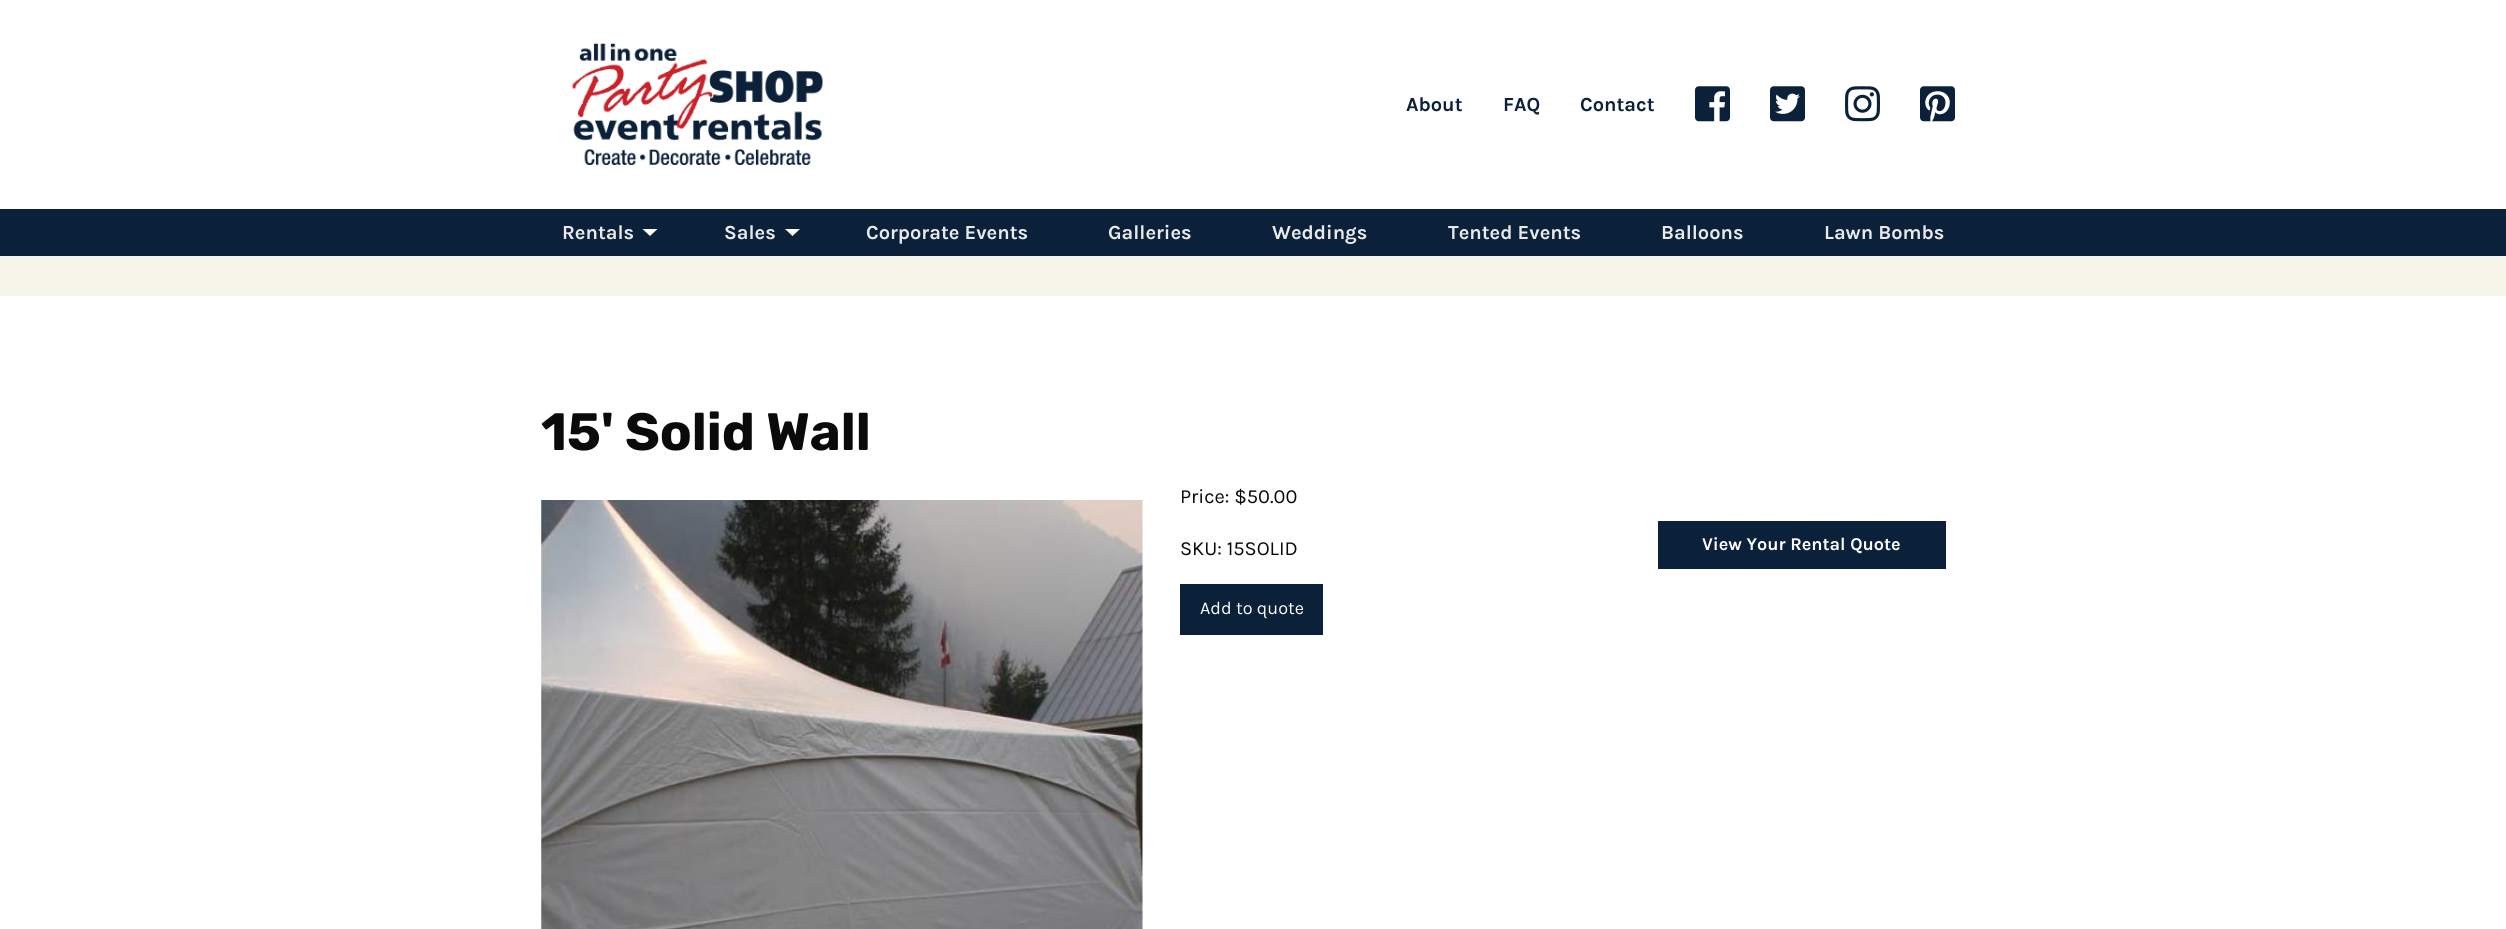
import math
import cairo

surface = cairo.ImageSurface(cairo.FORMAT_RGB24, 2506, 929)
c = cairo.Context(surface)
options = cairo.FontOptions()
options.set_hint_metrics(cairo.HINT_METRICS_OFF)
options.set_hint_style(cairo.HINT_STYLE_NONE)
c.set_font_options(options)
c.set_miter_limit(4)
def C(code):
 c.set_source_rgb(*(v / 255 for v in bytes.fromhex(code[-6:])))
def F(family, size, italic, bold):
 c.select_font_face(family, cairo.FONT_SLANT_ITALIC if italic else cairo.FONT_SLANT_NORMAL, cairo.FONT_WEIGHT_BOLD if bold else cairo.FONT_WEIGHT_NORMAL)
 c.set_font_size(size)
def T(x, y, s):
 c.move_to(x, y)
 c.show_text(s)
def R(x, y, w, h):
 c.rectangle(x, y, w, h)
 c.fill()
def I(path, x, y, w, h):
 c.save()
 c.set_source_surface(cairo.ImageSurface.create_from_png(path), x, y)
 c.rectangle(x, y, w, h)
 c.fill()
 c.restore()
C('ffffff')
c.paint()
I('1.png',572,43,251,122)
F('Karla',20,0,1)
C('0b2039')
T(1406,111,'About')
T(1503,111,'FAQ')
T(1580,111,'Contact')
I('2.png',1695,86,35,36)
I('3.png',1770,86,35,36)
I('4.png',1845,86,35,36)
I('5.png',1920,86,35,36)
R(0,209,2506,47)
C('e7e9eb')
T(562,239,'Rentals')
C('fefefe')
c.new_path()
c.move_to(642.5,229)
c.line_to(657.5,229)
c.line_to(650,236)
c.close_path()
c.fill()
C('e7e9eb')
T(724,239,'Sales')
C('fefefe')
c.new_path()
c.move_to(785,229)
c.line_to(800,229)
c.line_to(792.5,236)
c.close_path()
c.fill()
C('e7e9eb')
T(866,239,'Corporate Events')
T(1108,239,'Galleries')
T(1272,239,'Weddings')
T(1448,239,'Tented Events')
T(1661,239,'Balloons')
T(1824,239,'Lawn Bombs')
C('f6f5e9')
R(0,256,2506,40)
F('Rubik',52.5,0,1)
C('0a0a0a')
T(541,450,'15\' Solid Wall')
I('6.png',541,500,602,429)
F('Karla',20,0,0)
T(1180,503,'Price: $50.00')
T(1180,555,'SKU: 15SOLID')
C('0b2039')
R(1180,584,143,51)
F('Karla',18,0,0)
C('fefefe')
T(1200,614,'Add to quote')
C('0b2039')
R(1658,521,288,48)
F('Karla',18,0,1)
C('fefefe')
T(1702,550,'View Your Rental Quote')
surface.write_to_png('o.png')
